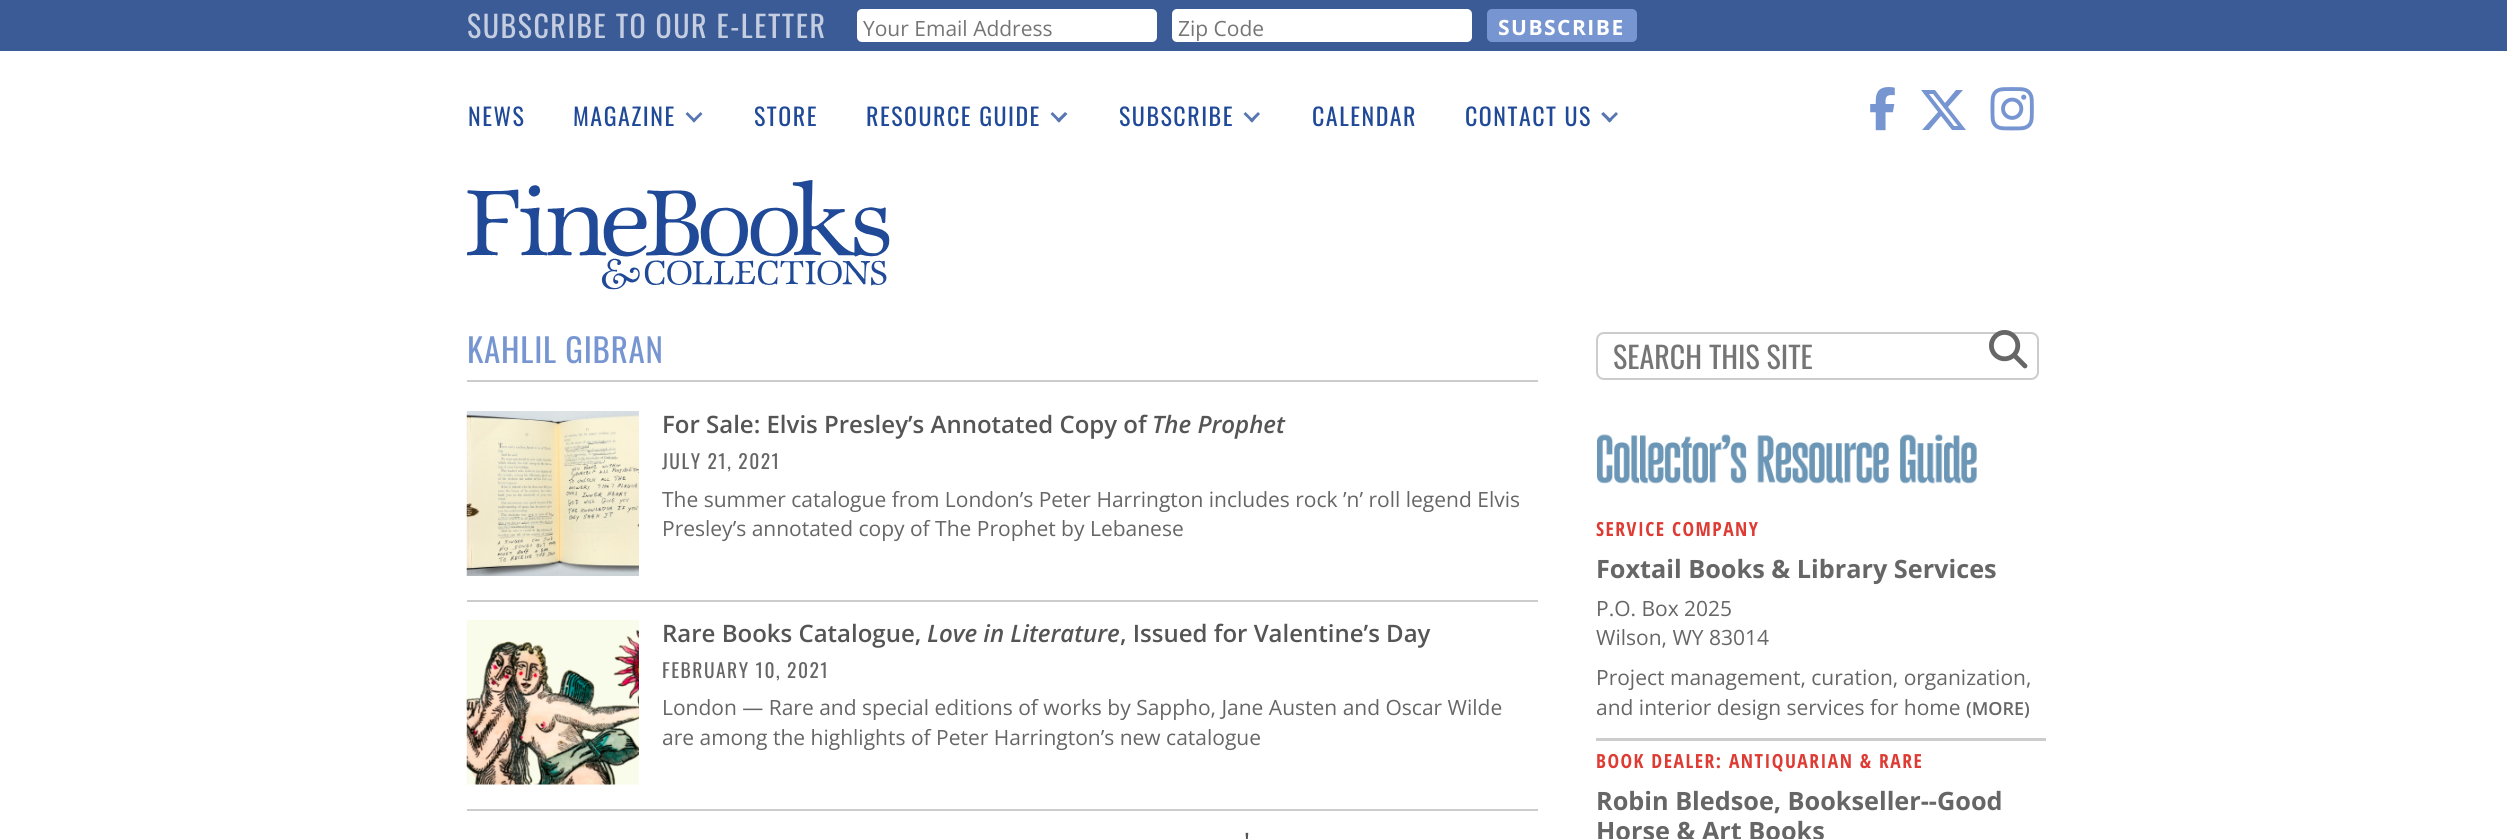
import math
import cairo

surface = cairo.ImageSurface(cairo.FORMAT_RGB24, 2507, 839)
c = cairo.Context(surface)
options = cairo.FontOptions()
options.set_hint_metrics(cairo.HINT_METRICS_OFF)
options.set_hint_style(cairo.HINT_STYLE_NONE)
c.set_font_options(options)
c.set_miter_limit(4)
def C(code):
 c.set_source_rgb(*(v / 255 for v in bytes.fromhex(code[-6:])))
def F(family, size, italic, bold):
 c.select_font_face(family, cairo.FONT_SLANT_ITALIC if italic else cairo.FONT_SLANT_NORMAL, cairo.FONT_WEIGHT_BOLD if bold else cairo.FONT_WEIGHT_NORMAL)
 c.set_font_size(size)
def T(x, y, s):
 c.move_to(x, y)
 c.show_text(s)
def L(x, y, s, letter, word):
 c.move_to(x, y)
 for ch in s:
  c.show_text(ch)
  c.rel_move_to(letter + word * (ch == ' '), 0)
def R(x, y, w, h):
 c.rectangle(x, y, w, h)
 c.fill()
def Q(x, y, w, h, r):
 c.new_sub_path()
 for i, (u, v) in enumerate([(x + w - r, y + h - r), (x + r, y + h - r), (x + r, y + r), (x + w - r, y + r)]):
  c.arc(u, v, r, i * math.pi / 2, (i + 1) * math.pi / 2)
 c.close_path()
def I(path, x, y, w, h):
 c.save()
 c.set_source_surface(cairo.ImageSurface.create_from_png(path), x, y)
 c.rectangle(x, y, w, h)
 c.fill()
 c.restore()
C('ffffff')
c.paint()
C('3b5b97')
R(0,0,2507,51)
F('Oswald',30,0,0)
C('c4cee0')
L(467,38,'SUBSCRIBE TO OUR E-LETTER',1.5,0)
C('ffffff')
Q(857,9,300,33,5)
c.fill()
F('Open Sans',21,0,0)
C('757575')
T(863,36,'Your Email Address')
C('ffffff')
Q(1172,9,300,33,5)
c.fill()
C('757575')
T(1178,36,'Zip Code')
C('7796d1')
Q(1487,9,150,33,5)
c.fill()
F('Open Sans',21,0,1)
C('ffffff')
L(1498,35,'SUBSCRIBE',1.5,0)
F('Oswald',24,0,0)
C('204a98')
L(468,126,'NEWS',1.5,0)
L(573,126,'MAGAZINE',1.5,0)
C('5877b2')
c.new_path()
c.move_to(700.5,112)
c.line_to(702.5,114)
c.line_to(694,122.5)
c.line_to(692,120.5)
c.close_path()
c.fill()
c.new_path()
c.move_to(687.5,112)
c.line_to(696,120.5)
c.line_to(694,122.5)
c.line_to(685.5,114)
c.close_path()
c.fill()
C('204a98')
L(754,126,'STORE',1.5,0)
L(866,126,'RESOURCE GUIDE',1.5,0)
C('5877b2')
c.new_path()
c.move_to(1065,112)
c.line_to(1067.5,114)
c.line_to(1059,122.5)
c.line_to(1056.5,120.5)
c.close_path()
c.fill()
c.new_path()
c.move_to(1052.5,112)
c.line_to(1061,120.5)
c.line_to(1059,122.5)
c.line_to(1050.5,114)
c.close_path()
c.fill()
C('204a98')
L(1119,126,'SUBSCRIBE',1.5,0)
C('5877b2')
c.new_path()
c.move_to(1258,112)
c.line_to(1260,114)
c.line_to(1252,122.5)
c.line_to(1249.5,120.5)
c.close_path()
c.fill()
c.new_path()
c.move_to(1245.5,112)
c.line_to(1254,120.5)
c.line_to(1252,122.5)
c.line_to(1243.5,114)
c.close_path()
c.fill()
C('204a98')
L(1312,126,'CALENDAR',1.5,0)
L(1465,126,'CONTACT US',1.5,0)
C('5877b2')
c.new_path()
c.move_to(1616,112)
c.line_to(1618,114)
c.line_to(1609.5,122.5)
c.line_to(1607.5,120.5)
c.close_path()
c.fill()
c.new_path()
c.move_to(1603.5,112)
c.line_to(1612,120.5)
c.line_to(1609.5,122.5)
c.line_to(1601,114)
c.close_path()
c.fill()
I('1.png',1870,87,25,44)
C('7796d1')
c.new_path()
c.move_to(1956,90)
c.line_to(1963,90)
c.line_to(1948,107)
c.line_to(1966,130)
c.line_to(1952,130)
c.line_to(1941,116)
c.line_to(1929,130)
c.line_to(1922,130)
c.line_to(1938,112)
c.line_to(1921,90)
c.line_to(1935,90)
c.line_to(1945,103)
c.close_path()
c.move_to(1954,126)
c.line_to(1958,126)
c.line_to(1933,94)
c.line_to(1929,94)
c.close_path()
c.fill()
I('2.png',1990,87,44,44)
I('3.png',467,180,423,110)
C('cccccc')
R(467,380,1071,2)
F('Oswald',33,0,0)
C('7796d1')
L(467,363,'KAHLIL GIBRAN',.75,0)
C('cccccc')
R(467,600,1071,2)
I('4.png',466,411,173,165)
F('Open Sans SemiBold',24,0,0)
C('555555')
T(662,433,'For Sale: Elvis Presley’s Annotated Copy of')
F('Open Sans SemiBold',24,1,0)
T(1152,433,'The Prophet')
F('Oswald',19.5,0,0)
C('666666')
L(662,469,'JULY 21, 2021',1.5,0)
F('Open Sans',21,0,0)
T(662,507,'The summer catalogue from London’s Peter Harrington includes rock ’n’ roll legend Elvis')
T(662,536,'Presley’s annotated copy of The Prophet by Lebanese')
C('cccccc')
R(467,809,1071,2)
I('5.png',466,619,173,166)
F('Open Sans SemiBold',24,0,0)
C('555555')
T(662,642,'Rare Books Catalogue,')
F('Open Sans SemiBold',24,1,0)
T(927,642,'Love in Literature')
F('Open Sans SemiBold',24,0,0)
T(1120,642,', Issued for Valentine’s Day')
F('Oswald',19.5,0,0)
C('666666')
L(662,678,'FEBRUARY 10, 2021',1.5,0)
F('Open Sans',21,0,0)
T(662,715,'London — Rare and special editions of works by Sappho, Jane Austen and Oscar Wilde')
T(662,745,'are among the highlights of Peter Harrington’s new catalogue')
F('Open Sans SemiBold',24,0,0)
C('555555')
T(1244,850,'\'')
Q(1597,333,441,46,7)
C('cccccc')
c.stroke()
F('Oswald',30,0,0)
C('757575')
T(1613,369,'SEARCH THIS SITE')
I('6.png',1989,330,39,39)
I('7.png',1597,434,380,50)
C('cccccc')
R(1596,738,450,3)
F('Open Sans Condensed',19.5,0,1)
C('dd3b33')
L(1596,536,'SERVICE COMPANY',1.5,0)
F('Open Sans',25.25,0,1)
C('666666')
T(1596,578,'Foxtail Books & Library Services')
F('Open Sans',21,0,0)
T(1596,616,'P.O. Box 2025')
T(1596,645,'Wilson, WY 83014')
T(1596,685,'Project management, curation, organization,')
T(1596,715,'and interior design services for home')
F('Open Sans SemiBold',18,0,0)
T(1966,715,'(MORE)')
F('Open Sans Condensed',19.5,0,1)
C('dd3b33')
L(1596,768,'BOOK DEALER: ANTIQUARIAN & RARE',1.5,0)
F('Open Sans',25.25,0,1)
C('666666')
T(1596,810,'Robin Bledsoe, Bookseller--Good')
T(1596,840,'Horse & Art Books')
surface.write_to_png('o.png')
